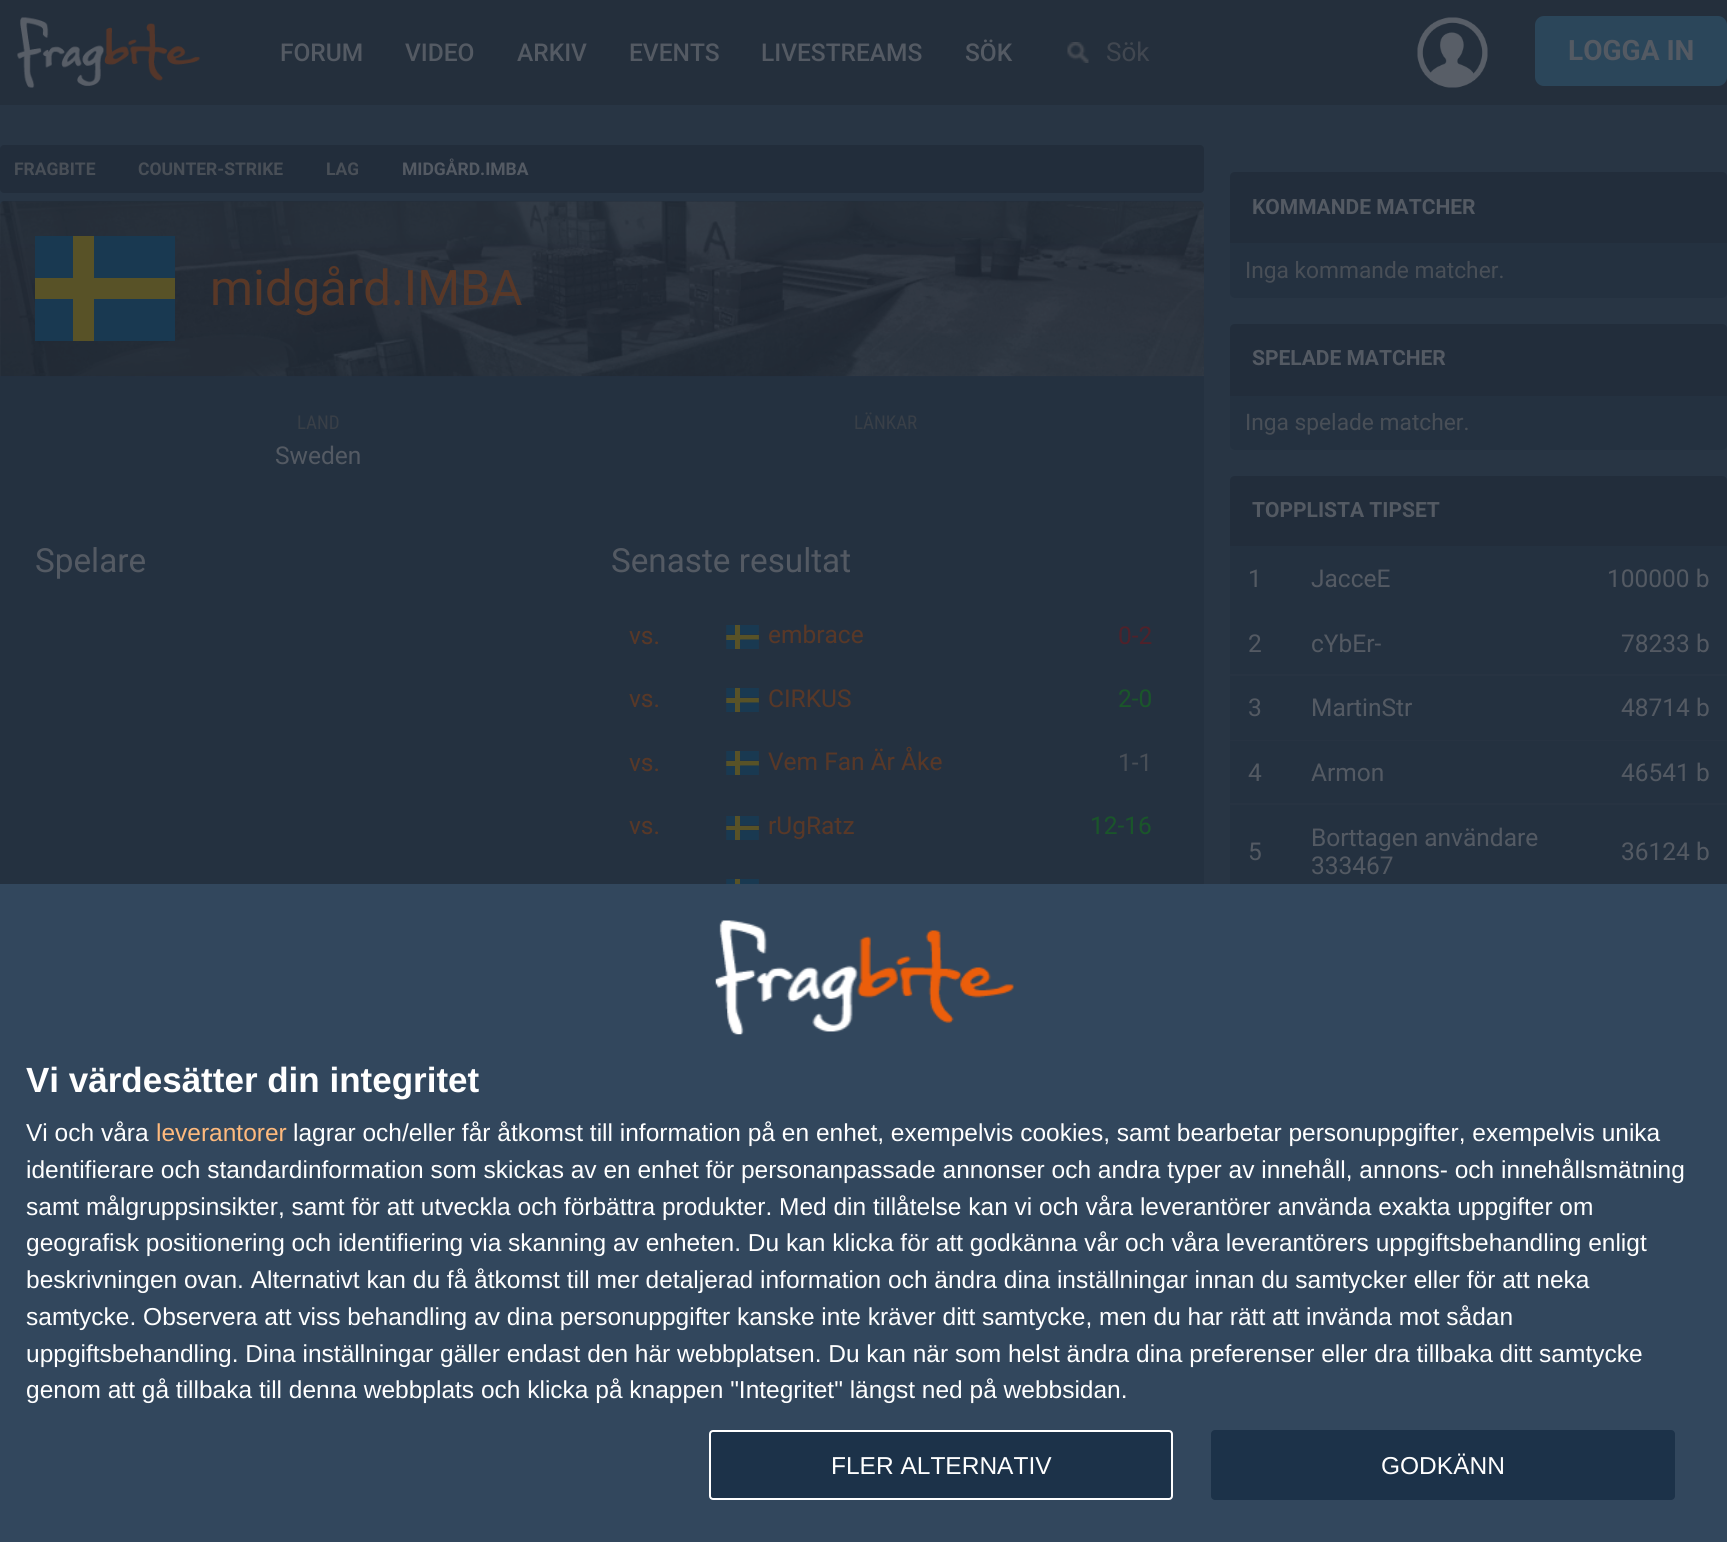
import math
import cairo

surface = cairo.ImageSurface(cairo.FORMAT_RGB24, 1727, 1542)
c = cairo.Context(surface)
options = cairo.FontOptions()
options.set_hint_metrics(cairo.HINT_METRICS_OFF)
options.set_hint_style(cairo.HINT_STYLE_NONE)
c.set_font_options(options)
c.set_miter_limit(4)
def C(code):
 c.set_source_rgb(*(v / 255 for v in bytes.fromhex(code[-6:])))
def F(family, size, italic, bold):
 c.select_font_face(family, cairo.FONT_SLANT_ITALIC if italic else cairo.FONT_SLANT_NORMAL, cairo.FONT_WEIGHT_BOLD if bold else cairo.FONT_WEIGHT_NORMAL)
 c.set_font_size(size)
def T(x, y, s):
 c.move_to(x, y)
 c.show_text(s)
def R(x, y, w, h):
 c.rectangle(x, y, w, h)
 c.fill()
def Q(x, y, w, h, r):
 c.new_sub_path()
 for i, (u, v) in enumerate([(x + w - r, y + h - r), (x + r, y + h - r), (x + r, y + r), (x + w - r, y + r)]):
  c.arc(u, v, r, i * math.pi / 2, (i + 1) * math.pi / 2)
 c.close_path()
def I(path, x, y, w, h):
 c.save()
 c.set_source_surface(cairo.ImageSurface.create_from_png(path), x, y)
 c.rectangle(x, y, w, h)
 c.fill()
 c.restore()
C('283544')
c.paint()
C('242f3c')
R(0,0,1727,105)
I('1.png',17,17,183,71)
F('Roboto Medium',24.5,0,0)
C('545a63')
T(280,61,'FORUM')
T(405,61,'VIDEO')
T(517,61,'ARKIV')
T(629,61,'EVENTS')
T(761,61,'LIVESTREAMS')
T(965,61,'SÖK')
I('2.png',1067,42,22,21)
F('Roboto',26,0,0)
C('414750')
T(1106,61,'Sök')
I('3.png',1417,17,71,71)
C('2b465a')
Q(1535,16,192,70,9)
c.fill()
F('Roboto',28,0,1)
C('545a63')
T(1568,60,'LOGGA IN')
C('222d3b')
Q(0,145,1204,48,4)
c.fill()
F('Roboto',17.5,0,1)
C('494f57')
T(14,175,'FRAGBITE')
T(138,175,'COUNTER-STRIKE')
T(326,175,'LAG')
C('545a63')
T(402,175,'MIDGÅRD.IMBA')
C('243140')
Q(0,201,1204,755,4)
c.fill()
I('4.png',0,201,1204,176)
gradient = cairo.LinearGradient(602,201,602,376)
gradient.add_color_stop_rgba(0,0.114,0.137,0.169,.25)
gradient.add_color_stop_rgba(1,0.098,0.122,0.153,.25)
c.set_source(gradient)
c.new_path()
c.move_to(4,201)
c.line_to(1200,201)
c.curve_to(1202,201,1204,203,1204,205)
c.line_to(1204,376)
c.line_to(0,376)
c.line_to(0,205)
c.curve_to(0,203,2,201,4,201)
c.close_path()
c.fill()
C('193951')
c.set_fill_rule(cairo.FILL_RULE_EVEN_ODD)
c.new_path()
c.move_to(35,341)
c.line_to(35,299)
c.line_to(74,299)
c.line_to(74,341)
c.close_path()
c.move_to(35,236)
c.line_to(74,236)
c.line_to(74,278)
c.line_to(35,278)
c.close_path()
c.fill()
C('585227')
R(35,278,38,21)
R(73,236,21,105)
R(94,278,81,21)
C('193951')
c.new_path()
c.move_to(94,299)
c.line_to(175,299)
c.line_to(175,341)
c.line_to(94,341)
c.close_path()
c.move_to(175,278)
c.line_to(94,278)
c.line_to(94,236)
c.line_to(175,236)
c.close_path()
c.fill()
F('Roboto',49,0,0)
C('593827')
T(210,305,'midgård.IMBA')
F('Roboto Condensed',19,0,0)
C('393f47')
T(297,429,'LAND')
F('Roboto',24.5,0,0)
C('545a63')
T(275,464,'Sweden')
F('Roboto Condensed',19,0,0)
C('393f47')
T(854,429,'LÄNKAR')
F('Roboto',33.25,0,0)
C('545a63')
T(35,572,'Spelare')
T(611,572,'Senaste resultat')
F('Roboto',24.5,0,0)
C('593827')
T(629,644,'vs.')
I('5.png',726,625,33,24)
T(768,643,'embrace')
C('50212a')
T(1118,644,'0-2')
C('593827')
T(629,707,'vs.')
I('6.png',726,688,33,24)
T(768,707,'CIRKUS')
C('1a562a')
T(1118,707,'2-0')
C('593827')
T(629,771,'vs.')
I('5.png',726,751,33,24)
T(768,770,'Vem Fan Är Åke')
C('494f57')
T(1118,771,'1-1')
C('593827')
T(629,834,'vs.')
I('7.png',726,816,33,24)
T(768,834,'rUgRatz')
C('1a562a')
T(1090,834,'12-16')
I('8.png',726,879,33,5)
C('243140')
Q(1230,172,497,126,5)
c.fill()
C('222d3b')
c.new_path()
c.move_to(1235,172)
c.line_to(1722,172)
c.curve_to(1725,172,1727,174,1727,177)
c.line_to(1727,243)
c.line_to(1230,243)
c.line_to(1230,177)
c.curve_to(1230,174,1232,172,1235,172)
c.close_path()
c.fill()
F('Roboto',21,0,1)
C('545a63')
T(1252,214,'KOMMANDE MATCHER')
F('Roboto',22.75,0,0)
C('494f57')
T(1245,278,'Inga kommande matcher.')
C('243140')
Q(1230,324,497,126,5)
c.fill()
C('222d3b')
c.new_path()
c.move_to(1235,324)
c.line_to(1722,324)
c.curve_to(1725,324,1727,326,1727,329)
c.line_to(1727,396)
c.line_to(1230,396)
c.line_to(1230,329)
c.curve_to(1230,326,1232,324,1235,324)
c.close_path()
c.fill()
F('Roboto',21,0,1)
C('545a63')
T(1252,365,'SPELADE MATCHER')
F('Roboto',22.75,0,0)
C('494f57')
T(1245,430,'Inga spelade matcher.')
C('243140')
Q(1230,476,497,744,5)
c.fill()
C('222d3b')
c.new_path()
c.move_to(1235,476)
c.line_to(1722,476)
c.curve_to(1725,476,1727,478,1727,481)
c.line_to(1727,546)
c.line_to(1230,546)
c.line_to(1230,481)
c.curve_to(1230,478,1232,476,1235,476)
c.close_path()
c.fill()
F('Roboto',21,0,1)
C('545a63')
T(1252,517,'TOPPLISTA TIPSET')
F('Roboto',24.5,0,0)
T(1248,587,'1')
T(1311,587,'JacceE')
T(1607,587,'100000 b')
C('273342')
R(1230,674,497,2)
C('545a63')
T(1248,652,'2')
T(1311,652,'cYbEr-')
T(1621,652,'78233 b')
T(1248,716,'3')
T(1311,716,'MartinStr')
T(1621,716,'48714 b')
C('273342')
R(1230,740,497,1)
R(1230,803,497,2)
C('545a63')
T(1248,781,'4')
T(1311,781,'Armon')
T(1621,781,'46541 b')
T(1248,860,'5')
T(1311,846,'Borttagen användare')
T(1311,874,'333467')
T(1621,860,'36124 b')
C('32475d')
R(0,884,1727,658)
I('9.png',715,920,299,115)
F('Liberation Sans',35,0,1)
C('ffffff')
T(26,1092,'Vi värdesätter din integritet')
F('Liberation Sans',24.5,0,0)
T(26,1141,'Vi och våra')
C('ffba7d')
T(156,1141,'leverantorer')
C('ffffff')
T(293,1141,'lagrar och/eller får åtkomst till information på en enhet, exempelvis cookies, samt bearbetar personuppgifter, exempelvis unika')
T(26,1178,'identifierare och standardinformation som skickas av en enhet för personanpassade annonser och andra typer av innehåll, annons- och innehållsmätning')
T(26,1215,'samt målgruppsinsikter, samt för att utveckla och förbättra produkter. Med din tillåtelse kan vi och våra leverantörer använda exakta uppgifter om')
T(26,1251,'geografisk positionering och identifiering via skanning av enheten. Du kan klicka för att godkänna vår och våra leverantörers uppgiftsbehandling enligt')
T(26,1288,'beskrivningen ovan. Alternativt kan du få åtkomst till mer detaljerad information och ändra dina inställningar innan du samtycker eller för att neka')
T(26,1325,'samtycke. Observera att viss behandling av dina personuppgifter kanske inte kräver ditt samtycke, men du har rätt att invända mot sådan')
T(26,1362,'uppgiftsbehandling. Dina inställningar gäller endast den här webbplatsen. Du kan när som helst ändra dina preferenser eller dra tillbaka ditt samtycke')
T(26,1398,'genom att gå tillbaka till denna webbplats och klicka på knappen "Integritet" längst ned på webbsidan.')
C('1c3249')
Q(710,1431,462,68,3)
c.fill_preserve()
C('ffffff')
c.stroke()
T(831,1474,'FLER ALTERNATIV')
C('1c3249')
Q(1211,1430,464,70,4)
c.fill()
C('ffffff')
T(1381,1474,'GODKÄNN')
surface.write_to_png('o.png')
